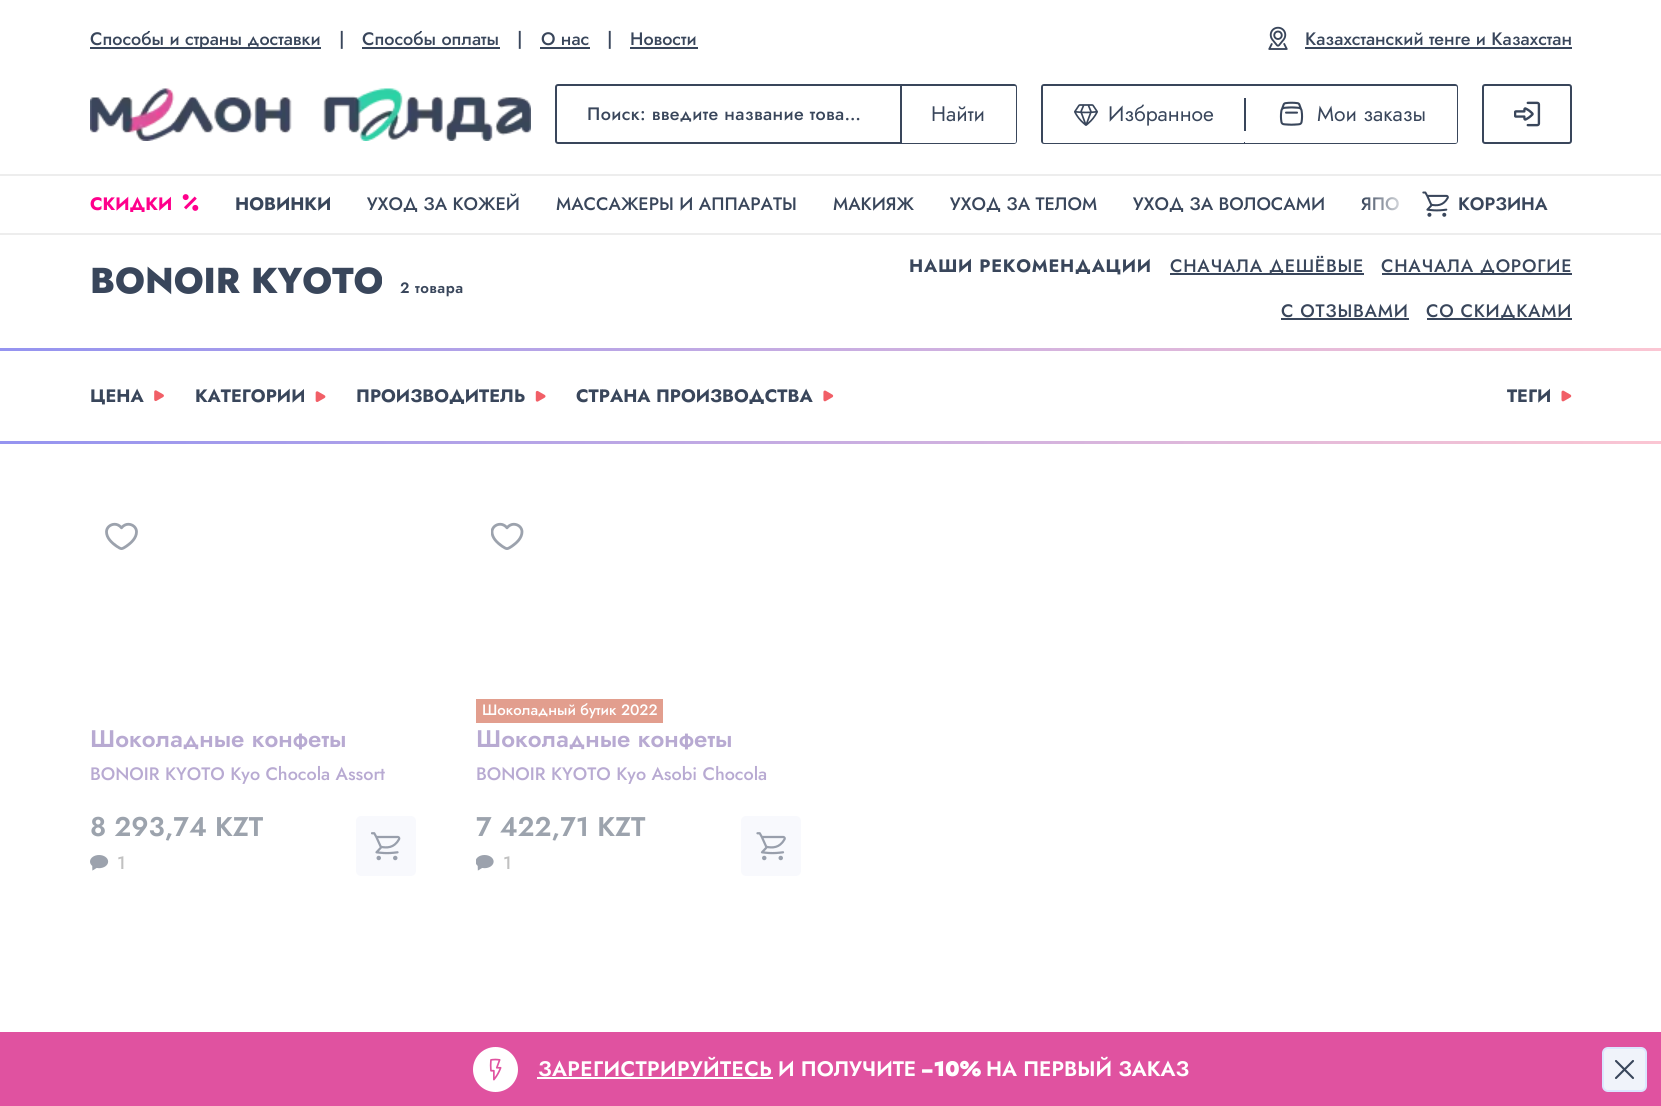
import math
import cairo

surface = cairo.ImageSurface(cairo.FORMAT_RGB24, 1661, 1106)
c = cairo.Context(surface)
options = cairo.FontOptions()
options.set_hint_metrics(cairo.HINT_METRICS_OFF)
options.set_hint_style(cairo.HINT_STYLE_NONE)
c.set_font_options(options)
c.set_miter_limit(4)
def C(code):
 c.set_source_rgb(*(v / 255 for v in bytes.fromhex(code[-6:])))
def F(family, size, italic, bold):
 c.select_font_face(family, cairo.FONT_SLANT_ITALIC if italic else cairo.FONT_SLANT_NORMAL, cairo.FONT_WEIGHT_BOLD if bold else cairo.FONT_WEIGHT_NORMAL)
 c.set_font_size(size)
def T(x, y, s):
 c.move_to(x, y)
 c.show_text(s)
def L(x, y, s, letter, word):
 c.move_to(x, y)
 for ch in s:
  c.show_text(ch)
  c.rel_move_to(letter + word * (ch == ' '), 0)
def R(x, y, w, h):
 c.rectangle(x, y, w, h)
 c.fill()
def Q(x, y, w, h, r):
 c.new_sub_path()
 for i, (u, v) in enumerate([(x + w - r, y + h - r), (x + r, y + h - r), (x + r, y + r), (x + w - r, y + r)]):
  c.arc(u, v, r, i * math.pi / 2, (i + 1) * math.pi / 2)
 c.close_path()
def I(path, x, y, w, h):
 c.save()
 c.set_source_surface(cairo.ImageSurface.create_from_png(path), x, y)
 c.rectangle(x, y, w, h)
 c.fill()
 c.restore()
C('ffffff')
c.paint()
C('39465b')
R(90,47,231,2)
F('Jost Medium',18,0,0)
T(90,45,'Способы и страны доставки')
T(339,45,'|')
T(362,45,'Способы оплаты')
R(362,47,138,2)
T(517,45,'|')
T(541,45,'О нас')
R(540,47,50,2)
T(607,45,'|')
T(630,45,'Новости')
R(630,47,68,2)
I('1.png',1268,26,20,24)
T(1305,45,'Казахстанский тенге и Казахстан')
R(1305,47,267,2)
I('2.png',90,88,441,53)
Q(556,85,460,58,2)
c.stroke()
L(587,120,'Поиск: введите название това…',.35,0)
R(900,86,2,57)
C('ffffff')
c.new_path()
c.move_to(902,86)
c.line_to(1014.5,86)
c.curve_to(1015.5,86,1016,86.5,1016,87.5)
c.line_to(1016,141.5)
c.curve_to(1016,142.5,1015.5,143,1014.5,143)
c.line_to(902,143)
c.close_path()
c.fill()
F('Jost',21,0,0)
C('39465b')
T(931,121,'Найти')
Q(1042,85,415,58,2)
c.stroke()
C('ffffff')
c.new_path()
c.move_to(1044.5,86)
c.line_to(1244,86)
c.line_to(1244,143)
c.line_to(1044.5,143)
c.curve_to(1043.5,143,1043,142.5,1043,141.5)
c.line_to(1043,87.5)
c.curve_to(1043,86.5,1043.5,86,1044.5,86)
c.close_path()
c.fill()
I('3.png',1074,104,24,22)
C('39465b')
T(1108,121,'Избранное')
C('ffffff')
c.new_path()
c.move_to(1245,86)
c.line_to(1455.5,86)
c.curve_to(1456.5,86,1457,86.5,1457,87.5)
c.line_to(1457,141.5)
c.curve_to(1457,142.5,1456.5,143,1455.5,143)
c.line_to(1245,143)
c.close_path()
c.fill()
C('39465b')
R(1244,98,2,33)
I('4.png',1279,101,25,25)
T(1317,121,'Мои заказы')
Q(1483,85,88,58,2)
c.stroke()
I('5.png',1514,101,27,26)
C('ededed')
R(0,174,1661,2)
R(0,233,1661,2)
F('Jost',18,0,1)
C('ff008c')
T(90,210,'СКИДКИ')
I('6.png',182,194,17,17)
C('39465b')
T(235,210,'НОВИНКИ')
F('Jost Medium',18,0,0)
T(367,210,'УХОД ЗА КОЖЕЙ')
T(556,210,'МАССАЖЕРЫ И АППАРАТЫ')
T(833,210,'МАКИЯЖ')
T(950,210,'УХОД ЗА ТЕЛОМ')
T(1133,210,'УХОД ЗА ВОЛОСАМИ')
T(1361,210,'ЯПО')
gradient = cairo.LinearGradient(1362,204,1410,204)
gradient.add_color_stop_rgba(0,1,1,1,0)
gradient.add_color_stop_rgba(1,1,1,1,1)
c.set_source(gradient)
R(1363,197,37,14)
I('7.png',1422,191,27,26)
F('Jost SemiBold',18,0,0)
C('39465b')
T(1458,210,'КОРЗИНА')
F('Jost ExtraBold',36,0,0)
T(90,293,'BONOIR KYOTO')
F('Jost SemiBold',15,0,0)
L(400,293,'2 товара',.5,0)
F('Jost',18,0,1)
L(909,272,'НАШИ РЕКОМЕНДАЦИИ',.75,0)
R(1170,273,194,2)
F('Jost Medium',18,0,0)
L(1170,272,'СНАЧАЛА ДЕШЁВЫЕ',.75,0)
R(1382,273,190,2)
L(1381,272,'СНАЧАЛА ДОРОГИЕ',.75,0)
L(1281,317,'С ОТЗЫВАМИ',.75,0)
R(1281,318,128,2)
R(1427,318,145,2)
L(1426,317,'СО СКИДКАМИ',.75,0)
gradient = cairo.LinearGradient(0,350,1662,349)
gradient.add_color_stop_rgba(0,0.584,0.58,0.941,1)
gradient.add_color_stop_rgba(1,0.984,0.776,0.827,1)
c.set_source(gradient)
R(0,348,1661,3)
F('Jost',18,0,1)
C('39465b')
T(90,402,'ЦЕНА')
I('8.png',154,390,10,12)
T(195,402,'КАТЕГОРИИ')
I('9.png',315,391,11,11)
T(356,402,'ПРОИЗВОДИТЕЛЬ')
I('10.png',535,390,11,12)
T(576,402,'СТРАНА ПРОИЗВОДСТВА')
I('11.png',823,390,11,12)
T(1507,402,'ТЕГИ')
I('12.png',1561,390,11,12)
gradient = cairo.LinearGradient(0,443,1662,442)
gradient.add_color_stop_rgba(0,0.584,0.58,0.941,1)
gradient.add_color_stop_rgba(1,0.984,0.776,0.827,1)
c.set_source(gradient)
R(0,441,1661,3)
I('13.png',105,522,33,28)
F('Jost SemiBold',24,0,0)
C('b8aad2')
T(90,747,'Шоколадные конфеты')
F('Jost Medium',18,0,0)
T(90,780,'BONOIR KYOTO Kyo Chocola Assort')
F('Jost SemiBold',27,0,0)
C('9ca3ad')
T(90,836,'8 293,74 KZT')
C('f8f9fd')
Q(356,816,60,60,5)
c.fill()
I('14.png',371,832,30,29)
I('15.png',90,855,19,16)
F('Jost Medium',18,0,0)
C('c1c1c1')
T(117,869,'1')
I('16.png',491,522,33,28)
C('e29e8e')
R(476,699,187,24)
F('Jost Medium',15,0,0)
C('ffffff')
T(482,715,'Шоколадный бутик 2022')
F('Jost SemiBold',24,0,0)
C('b8aad2')
T(476,747,'Шоколадные конфеты')
F('Jost Medium',18,0,0)
T(476,780,'BONOIR KYOTO Kyo Asobi Chocola')
F('Jost SemiBold',27,0,0)
C('9ca3ad')
T(476,836,'7 422,71 KZT')
C('f8f9fd')
Q(741,816,60,60,5)
c.fill()
I('17.png',756,832,30,29)
I('18.png',476,855,18,16)
F('Jost Medium',18,0,0)
C('c1c1c1')
T(503,869,'1')
C('e052a0')
R(0,1032,1661,74)
C('ffffff')
c.new_path()
c.arc(495.5,1069.5,22.5,0,2 * math.pi)
c.fill()
I('19.png',489,1058,13,23)
F('Jost SemiBold',21,0,0)
L(538,1076,'ЗАРЕГИСТРИРУЙТЕСЬ',.4,0)
R(537,1077,236,2)
T(778,1076,'И ПОЛУЧИТЕ')
F('Jost Black',21,0,0)
T(921,1076,'−10%')
F('Jost SemiBold',21,0,0)
T(986,1076,'НА ПЕРВЫЙ ЗАКАЗ')
C('f0f3fa')
Q(1603,1048,43,43,5)
c.fill_preserve()
C('dbe6ff')
c.stroke()
c.new_path()
c.move_to(1616,1078)
c.line_to(1633,1061)
c.move_to(1616,1061)
c.line_to(1633,1078)
C('39465b')
c.set_line_width(2.1)
c.set_line_cap(cairo.LINE_CAP_ROUND)
c.stroke()
surface.write_to_png('o.png')
